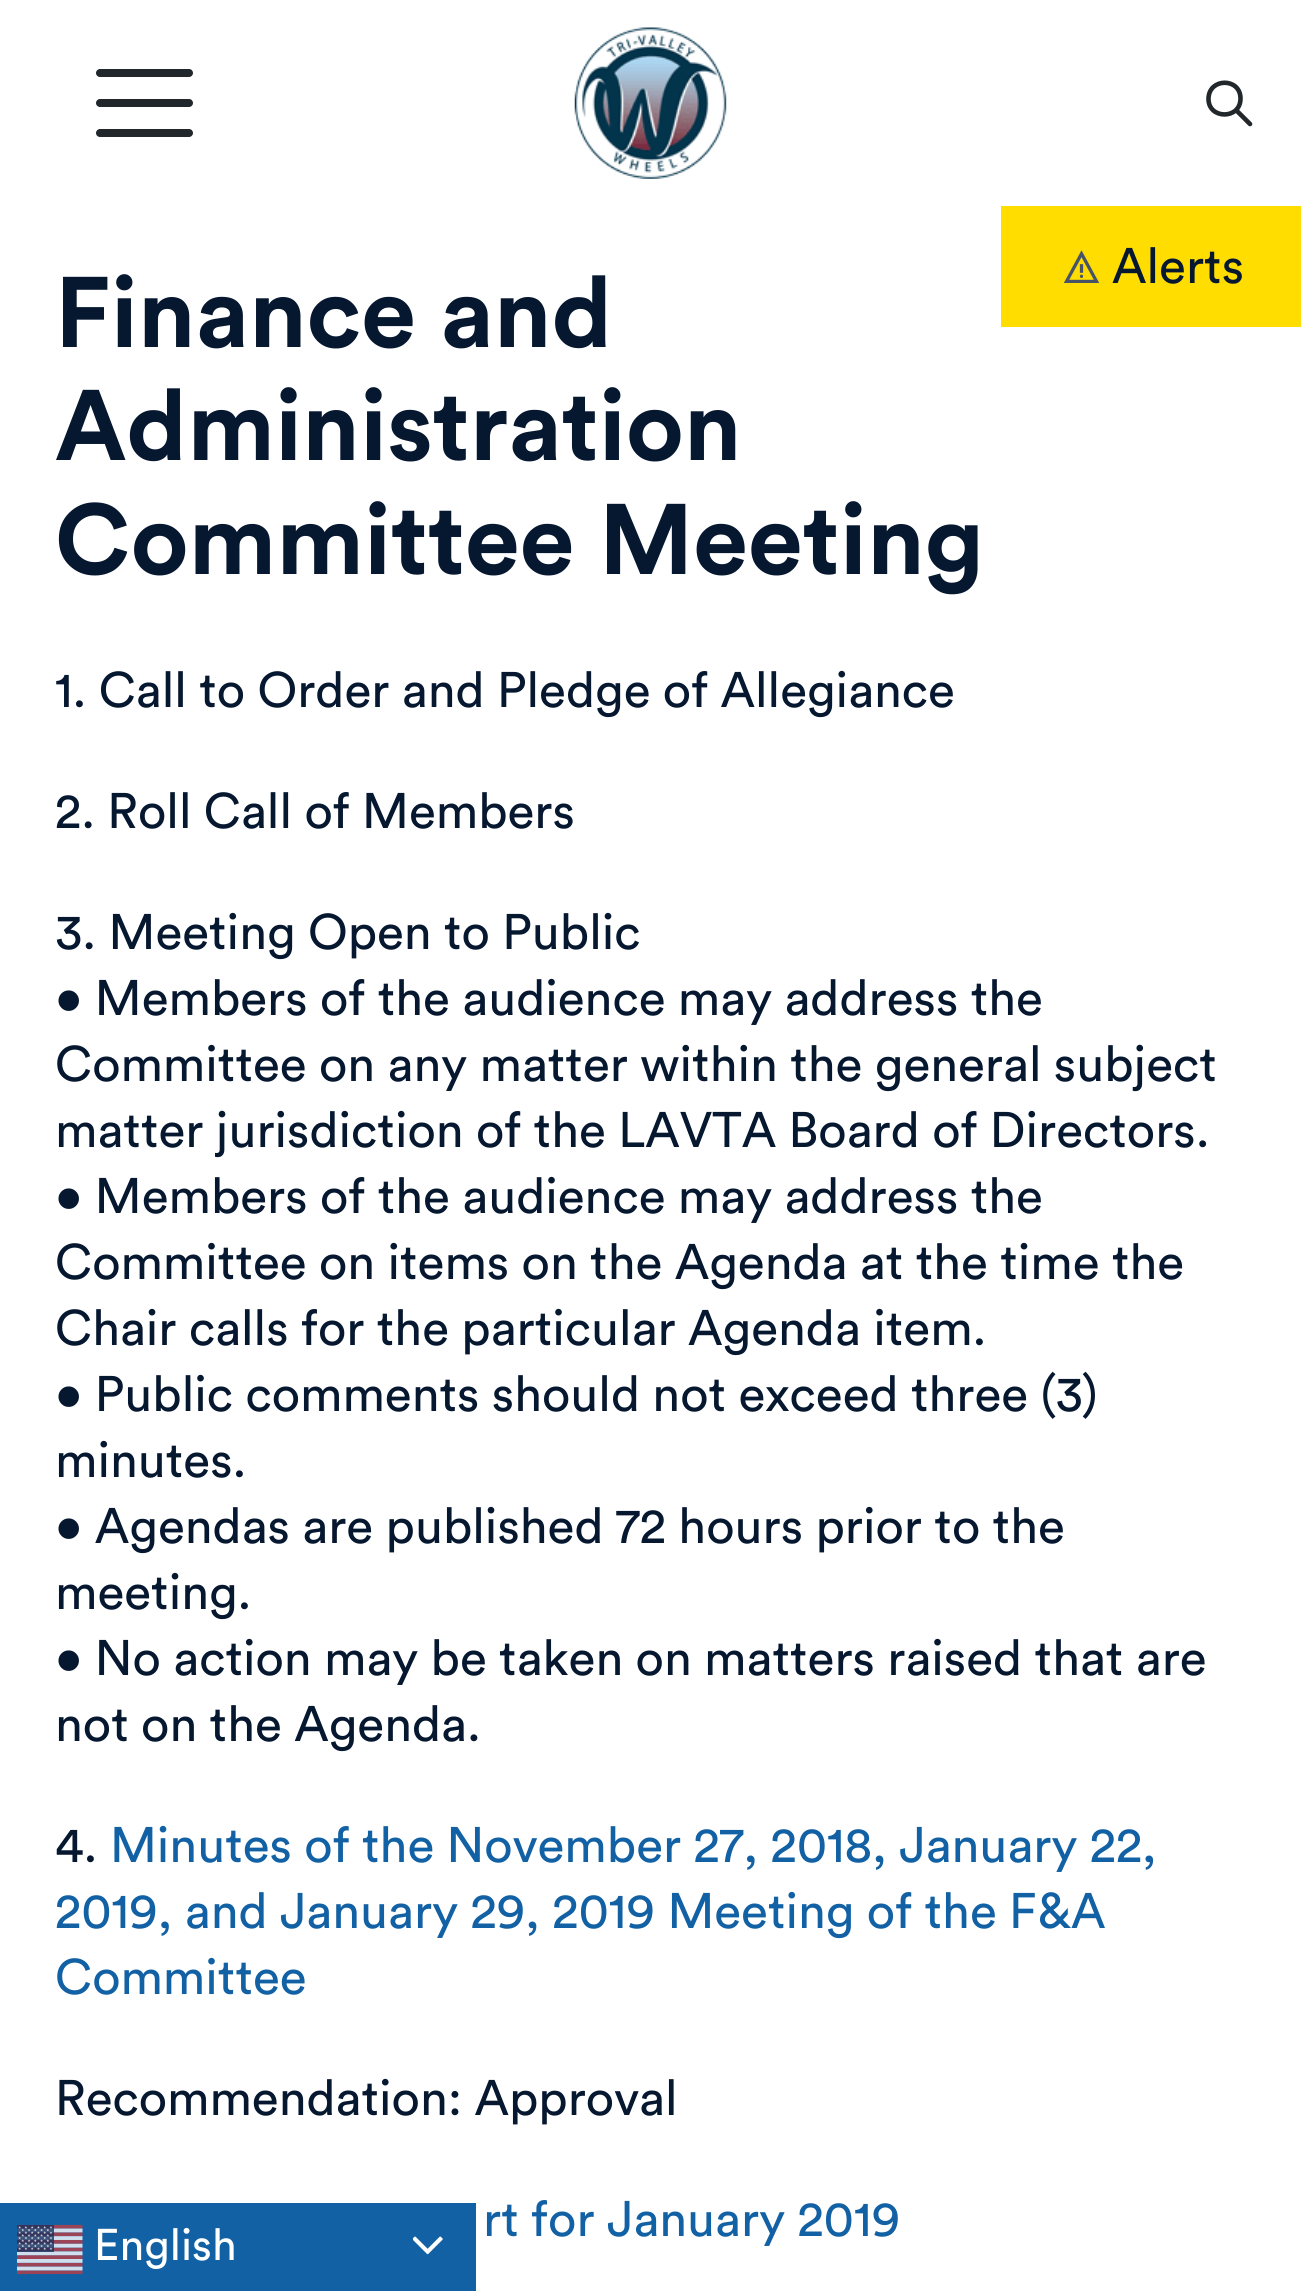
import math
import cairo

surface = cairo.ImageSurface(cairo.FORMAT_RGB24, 1301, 2291)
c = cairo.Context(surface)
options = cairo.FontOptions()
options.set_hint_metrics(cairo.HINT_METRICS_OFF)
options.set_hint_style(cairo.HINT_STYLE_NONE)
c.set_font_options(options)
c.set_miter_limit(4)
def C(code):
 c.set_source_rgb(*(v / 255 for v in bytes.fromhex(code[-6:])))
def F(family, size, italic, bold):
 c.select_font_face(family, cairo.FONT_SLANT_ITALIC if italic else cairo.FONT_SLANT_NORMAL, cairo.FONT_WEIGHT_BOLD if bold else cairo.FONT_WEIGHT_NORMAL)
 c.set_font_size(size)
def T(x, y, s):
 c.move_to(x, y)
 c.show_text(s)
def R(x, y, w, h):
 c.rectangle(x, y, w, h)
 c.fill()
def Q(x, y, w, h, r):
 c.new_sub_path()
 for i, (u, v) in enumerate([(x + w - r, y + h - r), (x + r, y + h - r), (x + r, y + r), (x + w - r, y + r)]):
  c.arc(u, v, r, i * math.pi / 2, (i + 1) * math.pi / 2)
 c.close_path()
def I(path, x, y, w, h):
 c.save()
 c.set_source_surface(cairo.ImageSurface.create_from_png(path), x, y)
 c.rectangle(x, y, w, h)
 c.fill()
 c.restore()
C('ffffff')
c.paint()
C('21272a')
Q(96,69,97,8,4)
c.fill()
Q(96,99,97,8,4)
c.fill()
Q(96,129,97,8,4)
c.fill()
I('1.png',574,27,153,152)
c.new_path()
c.move_to(1250,124)
c.line_to(1236,110)
c.move_to(1240.5,98.5)
c.curve_to(1240.5,120,1208,119.5,1208.5,98.5)
c.curve_to(1209,77.5,1240.5,77.5,1240.5,98.5)
c.close_path()
c.set_line_width(4.6)
c.set_line_cap(cairo.LINE_CAP_ROUND)
c.set_line_join(cairo.LINE_JOIN_ROUND)
c.stroke()
C('ffdd00')
R(1001,206,300,121)
I('2.png',1064,250,35,33)
F('Circular',49.5,0,0)
C('061730')
T(1112,283,'Alerts')
F('Circular',99,0,1)
T(55,347,'Finance and')
T(55,460,'Administration')
T(55,574,'Committee Meeting')
F('Circular',49.5,0,0)
T(55,707,'1. Call to Order and Pledge of Allegiance')
T(55,828,'2. Roll Call of Members')
T(55,949,'3. Meeting Open to Public')
T(55,1015,'• Members of the audience may address the')
T(55,1081,'Committee on any matter within the general subject')
T(55,1147,'matter jurisdiction of the LAVTA Board of Directors.')
T(55,1213,'• Members of the audience may address the')
T(55,1279,'Committee on items on the Agenda at the time the')
T(55,1345,'Chair calls for the particular Agenda item.')
T(55,1411,'• Public comments should not exceed three (3)')
T(55,1477,'minutes.')
T(55,1543,'• Agendas are published 72 hours prior to the')
T(55,1609,'meeting.')
T(55,1675,'• No action may be taken on matters raised that are')
T(55,1741,'not on the Agenda.')
T(55,1862,'4.')
C('1261a4')
T(110,1862,'Minutes of the November 27, 2018, January 22,')
T(55,1928,'2019, and January 29, 2019 Meeting of the F&A')
T(55,1994,'Committee')
C('061730')
T(55,2115,'Recommendation: Approval')
C('1261a4')
T(483,2236,'rt for January 2019')
R(0,2203,476,88)
I('3.png',17,2224,66,51)
F('Circular',44,0,0)
C('ffffff')
T(94,2260,'English')
I('4.png',413,2236,30,19)
surface.write_to_png('o.png')
